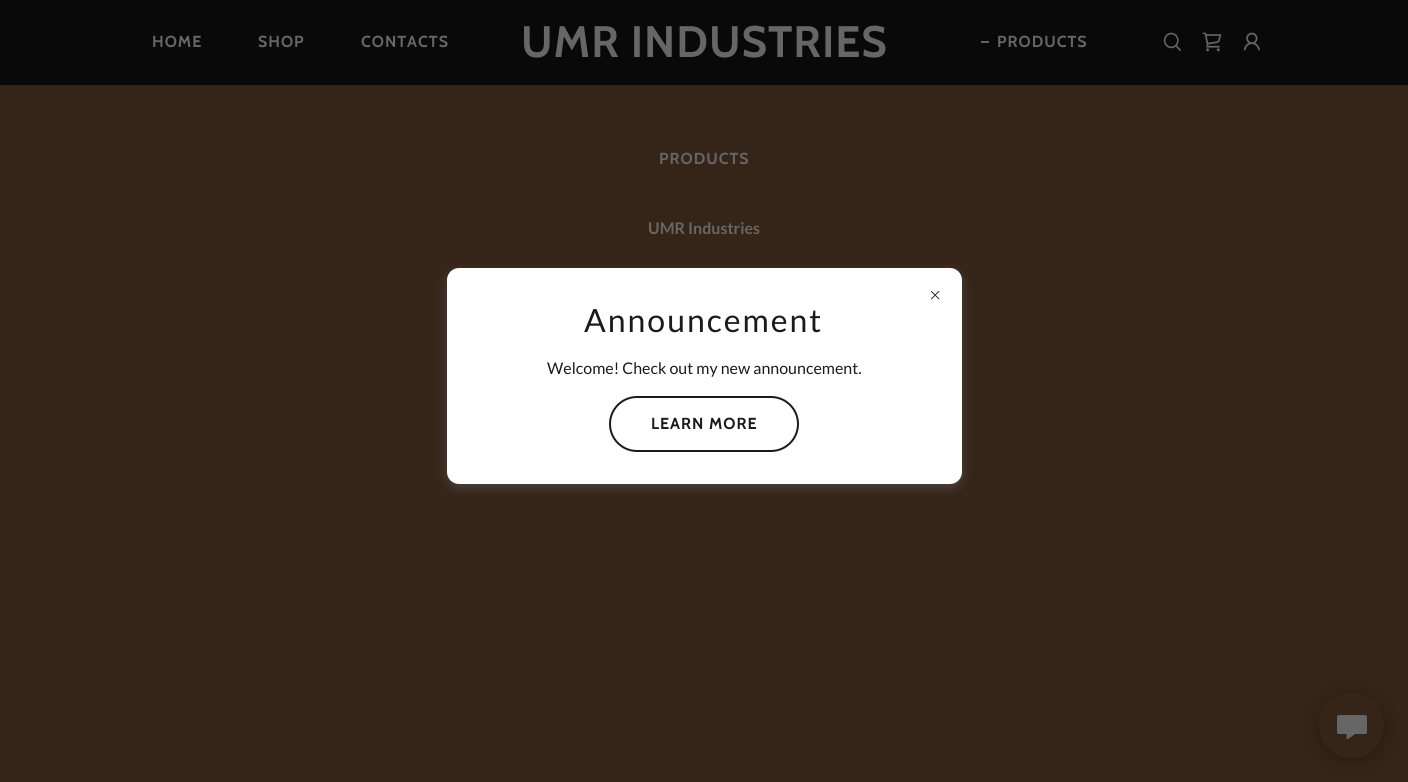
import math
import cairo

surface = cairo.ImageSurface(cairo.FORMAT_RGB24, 1408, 782)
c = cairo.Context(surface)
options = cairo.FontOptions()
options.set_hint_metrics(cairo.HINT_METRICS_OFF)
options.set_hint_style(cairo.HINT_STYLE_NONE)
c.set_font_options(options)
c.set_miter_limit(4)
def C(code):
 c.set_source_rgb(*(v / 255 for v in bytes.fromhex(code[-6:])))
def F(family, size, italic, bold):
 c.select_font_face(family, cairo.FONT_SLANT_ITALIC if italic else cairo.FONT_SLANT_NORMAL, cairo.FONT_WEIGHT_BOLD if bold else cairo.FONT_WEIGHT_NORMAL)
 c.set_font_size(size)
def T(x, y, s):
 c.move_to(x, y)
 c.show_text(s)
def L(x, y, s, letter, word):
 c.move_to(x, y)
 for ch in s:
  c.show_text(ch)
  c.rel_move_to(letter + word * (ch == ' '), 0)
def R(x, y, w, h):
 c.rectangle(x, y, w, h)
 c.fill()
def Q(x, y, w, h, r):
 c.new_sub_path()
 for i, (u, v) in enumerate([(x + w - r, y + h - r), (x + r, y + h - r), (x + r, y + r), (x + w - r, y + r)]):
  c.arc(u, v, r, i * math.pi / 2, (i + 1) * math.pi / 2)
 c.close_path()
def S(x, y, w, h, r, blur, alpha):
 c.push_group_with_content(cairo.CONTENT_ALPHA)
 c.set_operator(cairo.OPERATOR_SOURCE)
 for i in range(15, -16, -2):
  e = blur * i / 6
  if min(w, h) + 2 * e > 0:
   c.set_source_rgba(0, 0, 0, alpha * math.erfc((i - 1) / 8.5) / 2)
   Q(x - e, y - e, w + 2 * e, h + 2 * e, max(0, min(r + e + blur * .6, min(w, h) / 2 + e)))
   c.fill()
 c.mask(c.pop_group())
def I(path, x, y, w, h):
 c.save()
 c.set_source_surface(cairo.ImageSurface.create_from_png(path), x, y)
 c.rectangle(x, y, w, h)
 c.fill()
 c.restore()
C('352418')
c.paint()
C('090909')
R(0,0,1408,85)
F('Cabin',16,0,1)
C('666666')
L(152,47,'HOME',1,0)
L(258,47,'SHOP',1,0)
L(361,47,'CONTACTS',1,0)
F('Cabin',44,0,1)
L(521,57,'UMR INDUSTRIES',1,0)
C('636363')
R(981,41,8,2)
F('Cabin',16,0,1)
C('666666')
L(997,47,'PRODUCTS',1,0)
I('1.png',1163,32,18,19)
I('2.png',1202,32,20,20)
I('3.png',1243,32,17,19)
L(659,164,'PRODUCTS',1,0)
F('Lato',16,0,1)
T(648,234,'UMR Industries')
C('757575')
S(447,272,515,216,12,6,.4)
C('ffffff')
Q(447,268,515,216,12)
c.fill()
I('4.png',931,291,9,9)
F('Lato',32,0,0)
C('1b1b1b')
L(584,332,'Announcement',2,0)
F('Lato',16,0,0)
T(547,374,'Welcome! Check out my new announcement.')
Q(610,397,188,54,27)
c.stroke()
F('Cabin',16,0,1)
L(651,429,'LEARN MORE',1,0)
C('000000')
S(1319,696,65,65,32.5,9,.25)
C('352418')
c.arc(1351.5,725.5,32.5,0,2 * math.pi)
c.fill()
I('5.png',1337,715,30,25)
surface.write_to_png('o.png')
